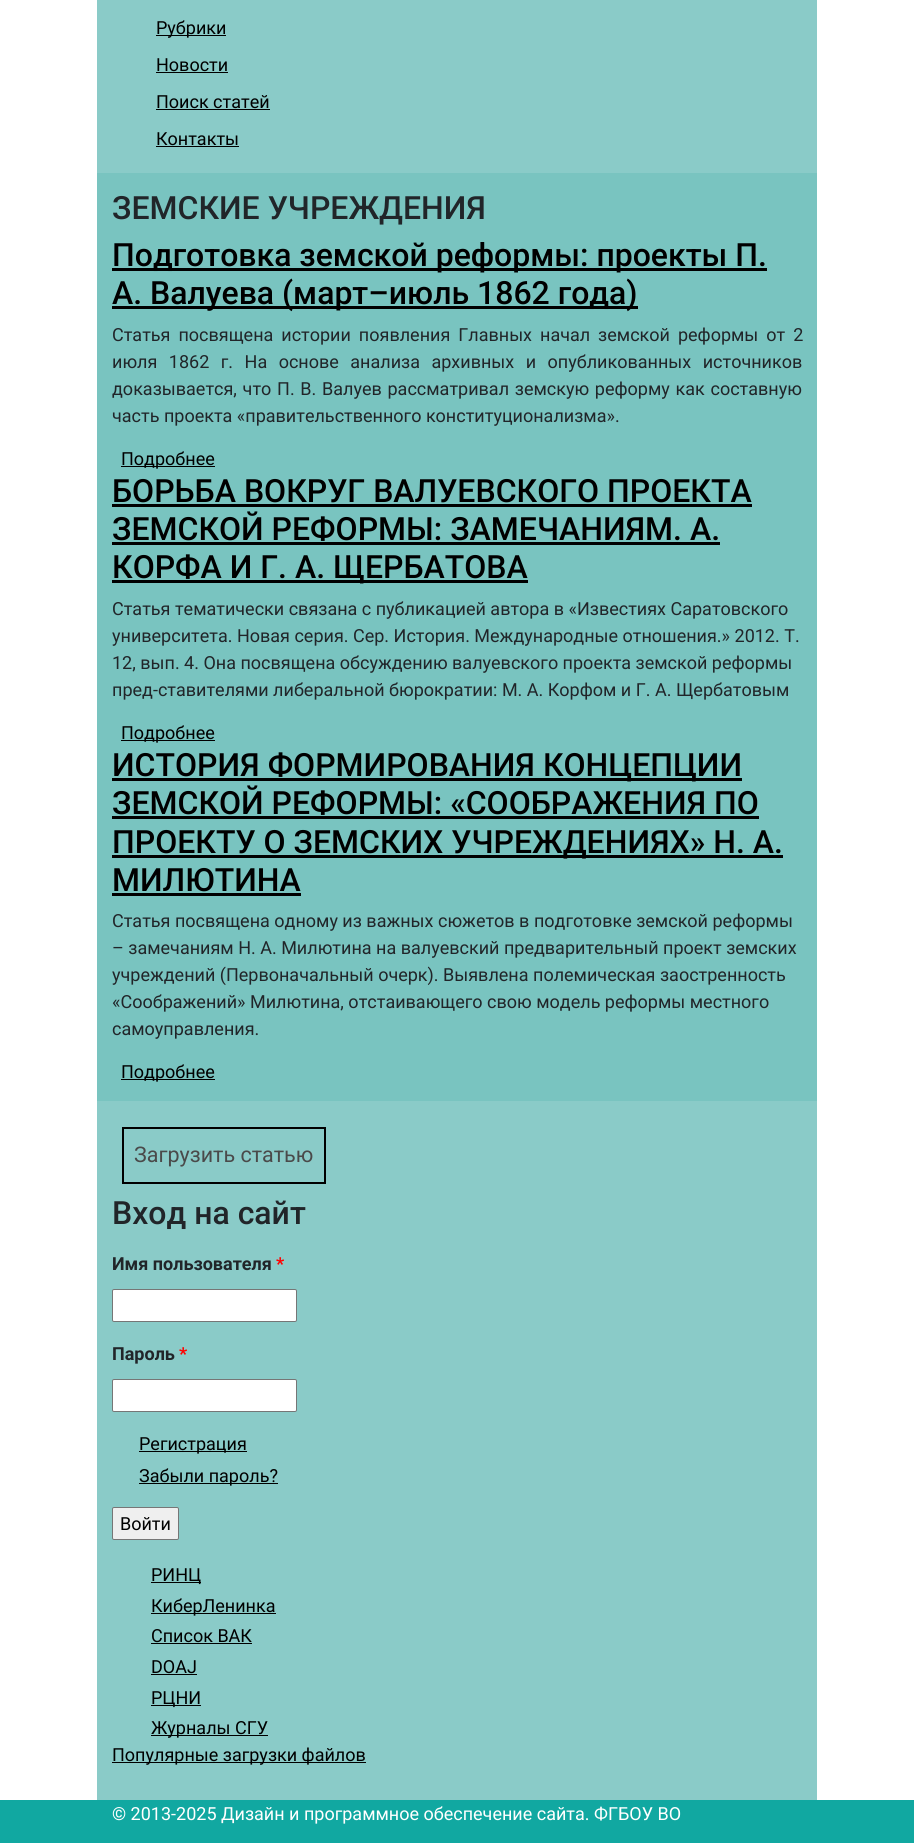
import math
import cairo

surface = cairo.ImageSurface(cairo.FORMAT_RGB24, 914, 1843)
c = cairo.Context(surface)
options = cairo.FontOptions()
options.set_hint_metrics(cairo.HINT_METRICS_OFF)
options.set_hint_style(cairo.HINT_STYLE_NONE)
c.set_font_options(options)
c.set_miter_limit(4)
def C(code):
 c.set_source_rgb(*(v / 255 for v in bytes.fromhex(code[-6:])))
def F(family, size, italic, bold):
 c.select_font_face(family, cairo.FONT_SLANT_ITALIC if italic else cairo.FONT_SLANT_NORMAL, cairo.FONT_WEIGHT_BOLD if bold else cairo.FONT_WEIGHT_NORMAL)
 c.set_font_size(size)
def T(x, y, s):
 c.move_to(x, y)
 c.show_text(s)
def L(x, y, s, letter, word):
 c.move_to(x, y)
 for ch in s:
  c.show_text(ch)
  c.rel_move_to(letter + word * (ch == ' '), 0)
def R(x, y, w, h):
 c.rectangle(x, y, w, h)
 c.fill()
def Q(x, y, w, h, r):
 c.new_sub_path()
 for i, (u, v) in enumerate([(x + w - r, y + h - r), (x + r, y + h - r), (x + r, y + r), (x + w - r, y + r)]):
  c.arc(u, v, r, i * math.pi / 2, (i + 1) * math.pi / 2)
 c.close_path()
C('ffffff')
c.paint()
C('8acbc8')
R(97,0,720,173)
C('000000')
R(156,35,70,1)
F('Roboto',18,0,0)
T(156,34,'Рубрики')
T(156,71,'Новости')
R(156,72,72,1)
T(156,108,'Поиск статей')
R(156,109,114,1)
T(156,145,'Контакты')
R(156,146,83,1)
C('79c4c0')
R(97,173,720,928)
F('Roboto Medium',32,0,0)
C('212529')
T(112,219,'ЗЕМСКИЕ УЧРЕЖДЕНИЯ')
C('000000')
R(112,268,655,3)
T(112,266,'Подготовка земской реформы: проекты П.')
R(112,306,526,3)
T(112,304,'А. Валуева (март–июль 1862 года)')
F('Roboto',18,0,0)
C('212529')
L(112,341,'Статья посвящена истории появления Главных начал земской реформы от 2',0,3.5)
L(112,368,'июля 1862 г. На основе анализа архивных и опубликованных источников',0,7)
L(112,395,'доказывается, что П. В. Валуев рассматривал земскую реформу как составную',0,1.25)
T(112,422,'часть проекта «правительственного конституционализма».')
C('000000')
R(121,466,94,1)
T(121,465,'Подробнее')
F('Roboto Medium',32,0,0)
T(112,502,'БОРЬБА ВОКРУГ ВАЛУЕВСКОГО ПРОЕКТА')
R(112,504,640,3)
T(112,540,'ЗЕМСКОЙ РЕФОРМЫ: ЗАМЕЧАНИЯМ. А.')
R(112,542,608,3)
R(112,580,416,3)
T(112,578,'КОРФА И Г. А. ЩЕРБАТОВА')
F('Roboto',18,0,0)
C('212529')
T(112,615,'Статья тематически связана с публикацией автора в «Известиях Саратовского')
T(112,642,'университета. Новая серия. Сер. История. Международные отношения.» 2012. Т.')
T(112,669,'12, вып. 4. Она посвящена обсуждению валуевского проекта земской реформы')
T(112,696,'пред-ставителями либеральной бюрократии: М. А. Корфом и Г. А. Щербатовым')
C('000000')
R(121,740,94,1)
T(121,739,'Подробнее')
R(112,778,630,3)
F('Roboto Medium',32,0,0)
T(112,776,'ИСТОРИЯ ФОРМИРОВАНИЯ КОНЦЕПЦИИ')
T(112,814,'ЗЕМСКОЙ РЕФОРМЫ: «СООБРАЖЕНИЯ ПО')
R(112,816,647,3)
R(112,855,671,3)
T(112,853,'ПРОЕКТУ О ЗЕМСКИХ УЧРЕЖДЕНИЯХ» Н. А.')
T(112,891,'МИЛЮТИНА')
R(112,893,189,3)
F('Roboto',18,0,0)
C('212529')
T(112,927,'Статья посвящена одному из важных сюжетов в подготовке земской реформы')
T(112,954,'– замечаниям Н. А. Милютина на валуевский предварительный проект земских')
T(112,981,'учреждений (Первоначальный очерк). Выявлена полемическая заостренность')
T(112,1008,'«Соображений» Милютина, отстаивающего свою модель реформы местного')
T(112,1035,'самоуправления.')
C('000000')
R(121,1079,94,1)
T(121,1078,'Подробнее')
C('8acbc8')
R(97,1101,720,699)
c.rectangle(123,1128,202,55)
C('000000')
c.stroke()
F('Roboto',21.5,0,0)
C('4a4a4a')
T(134,1162,'Загрузить статью')
F('Roboto Medium',32,0,0)
C('212529')
T(112,1224,'Вход на сайт')
F('Roboto',18,0,1)
T(112,1270,'Имя пользователя')
C('ff0000')
T(276,1270,'*')
C('ffffff')
Q(112.5,1289.5,184,32,1.5)
c.fill_preserve()
C('767676')
c.set_line_width(1)
c.stroke()
C('212529')
T(112,1360,'Пароль')
C('ff0000')
T(179,1360,'*')
C('ffffff')
Q(112.5,1379.5,184,32,1.5)
c.fill_preserve()
C('767676')
c.stroke()
C('000000')
R(139,1451,108,1)
F('Roboto',18,0,0)
T(139,1450,'Регистрация')
R(139,1483,139,1)
T(139,1482,'Забыли пароль?')
C('efefef')
Q(112.5,1507.5,66,32,1.5)
c.fill_preserve()
C('767676')
c.stroke()
C('000000')
T(120,1530,'Войти')
R(151,1582,50,1)
T(151,1581,'РИНЦ')
R(151,1613,125,1)
T(151,1612,'КиберЛенинка')
T(151,1642,'Список ВАК')
R(151,1643,101,1)
T(151,1673,'DOAJ')
R(151,1674,46,1)
R(151,1705,50,1)
T(151,1704,'РЦНИ')
R(151,1735,117,1)
T(151,1734,'Журналы СГУ')
R(112,1762,254,1)
T(112,1761,'Популярные загрузки файлов')
C('11a8a1')
R(0,1800,914,43)
C('ffffff')
T(112,1820,'© 2013-2025 Дизайн и программное обеспечение сайта. ФГБОУ ВО')
surface.write_to_png('o.png')
